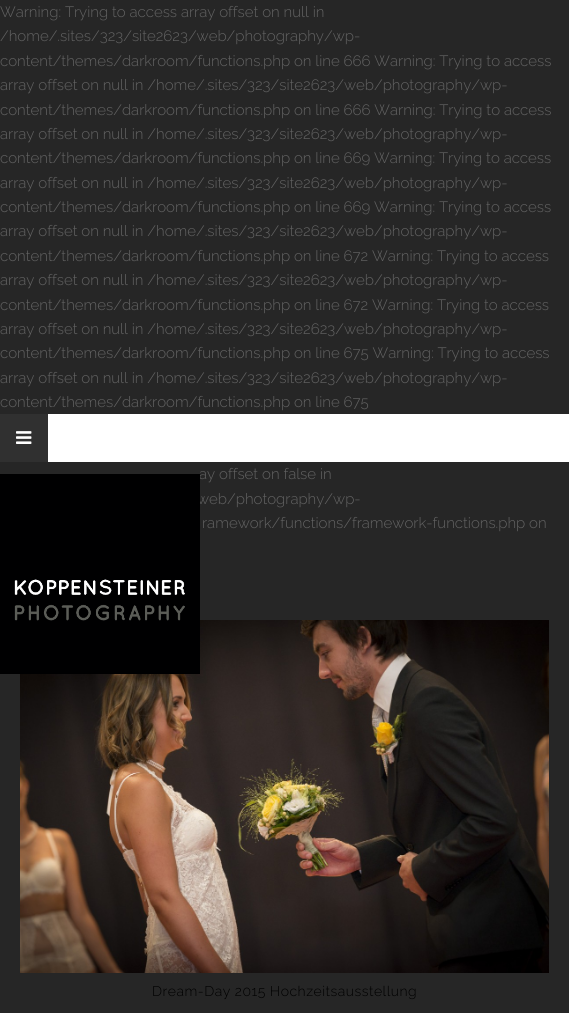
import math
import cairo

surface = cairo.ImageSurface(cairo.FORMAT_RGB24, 569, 1013)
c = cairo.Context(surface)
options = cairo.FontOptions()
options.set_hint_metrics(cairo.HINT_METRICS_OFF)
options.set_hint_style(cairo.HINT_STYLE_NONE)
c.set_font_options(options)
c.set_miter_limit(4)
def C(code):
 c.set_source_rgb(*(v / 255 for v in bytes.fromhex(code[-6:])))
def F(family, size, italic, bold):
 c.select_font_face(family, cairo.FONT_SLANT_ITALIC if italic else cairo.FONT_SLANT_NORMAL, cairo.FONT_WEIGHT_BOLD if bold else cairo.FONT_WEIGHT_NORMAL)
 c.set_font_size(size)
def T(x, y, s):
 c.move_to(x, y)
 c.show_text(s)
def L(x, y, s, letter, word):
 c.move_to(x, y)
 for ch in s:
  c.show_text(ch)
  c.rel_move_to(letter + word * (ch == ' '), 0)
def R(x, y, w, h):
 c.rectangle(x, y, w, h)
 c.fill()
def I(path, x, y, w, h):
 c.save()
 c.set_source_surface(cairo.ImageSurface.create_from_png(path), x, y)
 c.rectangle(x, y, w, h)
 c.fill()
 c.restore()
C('262626')
c.paint()
F('Raleway Light',15,0,0)
C('626262')
T(0,17,'Warning: Trying to access array offset on null in')
T(0,41,'/home/.sites/323/site2623/web/photography/wp-')
T(0,66,'content/themes/darkroom/functions.php on line 666 Warning: Trying to access')
T(0,90,'array offset on null in /home/.sites/323/site2623/web/photography/wp-')
T(0,115,'content/themes/darkroom/functions.php on line 666 Warning: Trying to access')
T(0,139,'array offset on null in /home/.sites/323/site2623/web/photography/wp-')
T(0,163,'content/themes/darkroom/functions.php on line 669 Warning: Trying to access')
T(0,188,'array offset on null in /home/.sites/323/site2623/web/photography/wp-')
T(0,212,'content/themes/darkroom/functions.php on line 669 Warning: Trying to access')
T(0,236,'array offset on null in /home/.sites/323/site2623/web/photography/wp-')
T(0,261,'content/themes/darkroom/functions.php on line 672 Warning: Trying to access')
T(0,285,'array offset on null in /home/.sites/323/site2623/web/photography/wp-')
T(0,310,'content/themes/darkroom/functions.php on line 672 Warning: Trying to access')
T(0,334,'array offset on null in /home/.sites/323/site2623/web/photography/wp-')
T(0,358,'content/themes/darkroom/functions.php on line 675 Warning: Trying to access')
T(0,383,'array offset on null in /home/.sites/323/site2623/web/photography/wp-')
T(0,407,'content/themes/darkroom/functions.php on line 675')
C('ffffff')
R(48,414,521,48)
C('303030')
R(0,414,48,48)
I('1.png',16,431,16,13)
C('626262')
T(199,479,'ay offset on false in')
T(197,504,'web/photography/wp-')
I('3.png',20,620,529,353)
I('2.png',0,474,200,200)
T(202,528,'ramework/functions/framework-functions.php on')
F('Raleway Light',14,0,0)
C('000000')
L(152,996,'Dream-Day 2015 Hochzeitsausstellung',.5,0)
surface.write_to_png('o.png')
